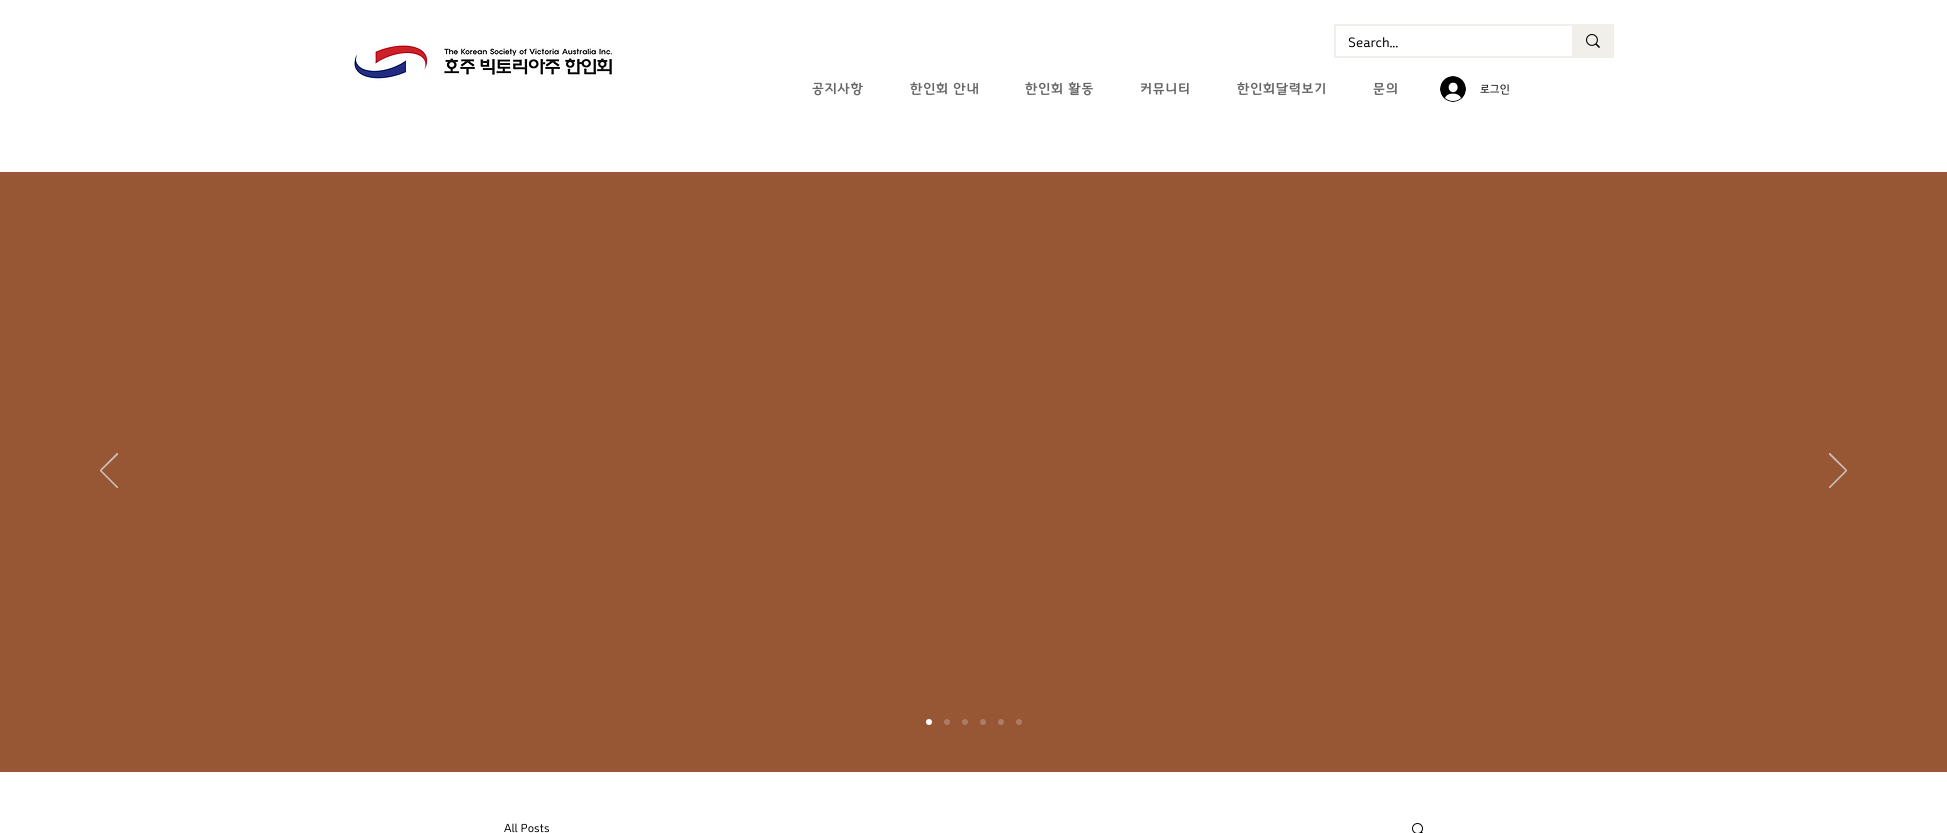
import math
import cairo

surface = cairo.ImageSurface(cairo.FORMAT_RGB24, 1947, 833)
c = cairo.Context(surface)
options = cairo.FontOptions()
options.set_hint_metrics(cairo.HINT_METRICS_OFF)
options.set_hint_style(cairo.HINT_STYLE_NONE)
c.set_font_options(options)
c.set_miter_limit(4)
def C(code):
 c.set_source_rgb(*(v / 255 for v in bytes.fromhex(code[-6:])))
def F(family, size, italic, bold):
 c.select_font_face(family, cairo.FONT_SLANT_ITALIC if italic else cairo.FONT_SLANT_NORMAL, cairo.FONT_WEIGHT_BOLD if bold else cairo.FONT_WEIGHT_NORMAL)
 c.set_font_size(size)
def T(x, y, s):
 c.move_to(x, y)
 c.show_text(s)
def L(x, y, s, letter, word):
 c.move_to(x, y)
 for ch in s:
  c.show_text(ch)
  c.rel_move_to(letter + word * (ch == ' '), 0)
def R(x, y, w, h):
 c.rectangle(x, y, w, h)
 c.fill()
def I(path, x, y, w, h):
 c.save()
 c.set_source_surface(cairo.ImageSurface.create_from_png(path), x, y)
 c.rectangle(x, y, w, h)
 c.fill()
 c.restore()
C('ffffff')
c.paint()
c.rectangle(1335,25,278,32)
C('f1efe9')
c.stroke()
F('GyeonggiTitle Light',14,0,0)
C('000000')
T(1348,47,'Search...')
C('f1efe9')
R(1572,26,40,30)
I('1.png',1586,34,14,14)
I('2.png',354,45,258,36)
F('GyeonggiTitle Medium',14,0,0)
C('666666')
L(812,93,'공지사항',.75,0)
L(910,93,'한인회 안내',.75,0)
L(1025,93,'한인회 활동',.75,0)
L(1140,93,'커뮤니티',.75,0)
L(1237,93,'한인회달력보기',.75,0)
L(1373,93,'문의',.75,0)
I('3.png',1440,76,26,26)
F('GyeonggiTitle Light',12,0,0)
C('000000')
T(1480,93,'로그인')
C('975735')
R(0,172,1947,600)
C('c2afa5')
c.new_path()
c.move_to(117.5,488)
c.line_to(100,470.5)
c.line_to(117.5,453)
c.line_to(118,454)
c.line_to(101,470.5)
c.line_to(118,487.5)
c.close_path()
c.fill()
c.save()
c.rectangle(100,453,18,35)
c.clip()
c.new_path()
c.move_to(117.5,488)
c.line_to(100,470.5)
c.line_to(117.5,453)
c.line_to(118,454)
c.line_to(101,470.5)
c.line_to(118,487.5)
c.close_path()
c.set_source_rgba(0.835,0.835,0.835,0.7)
c.set_line_width(.9)
c.stroke()
c.restore()
c.new_path()
c.move_to(1829.5,488)
c.line_to(1847,470.5)
c.line_to(1829.5,453)
c.line_to(1829,454)
c.line_to(1846,470.5)
c.line_to(1829,487.5)
c.close_path()
c.fill()
c.save()
c.rectangle(1829,453,18,35)
c.clip()
c.new_path()
c.move_to(1829.5,488)
c.line_to(1847,470.5)
c.line_to(1829.5,453)
c.line_to(1829,454)
c.line_to(1846,470.5)
c.line_to(1829,487.5)
c.close_path()
c.set_source_rgba(0.835,0.835,0.835,0.7)
c.set_line_width(.9)
c.stroke()
c.restore()
C('ffffff')
c.arc(929,722,3,0,2 * math.pi)
c.fill()
C('aa7d65')
c.arc(947,722,3,0,2 * math.pi)
c.fill()
c.arc(965,722,3,0,2 * math.pi)
c.fill()
c.arc(983,722,3,0,2 * math.pi)
c.fill()
c.arc(1001,722,3,0,2 * math.pi)
c.fill()
c.arc(1019,722,3,0,2 * math.pi)
c.fill()
C('000000')
T(504,832,'All Posts')
I('4.png',1412,823,11,10)
surface.write_to_png('o.png')
